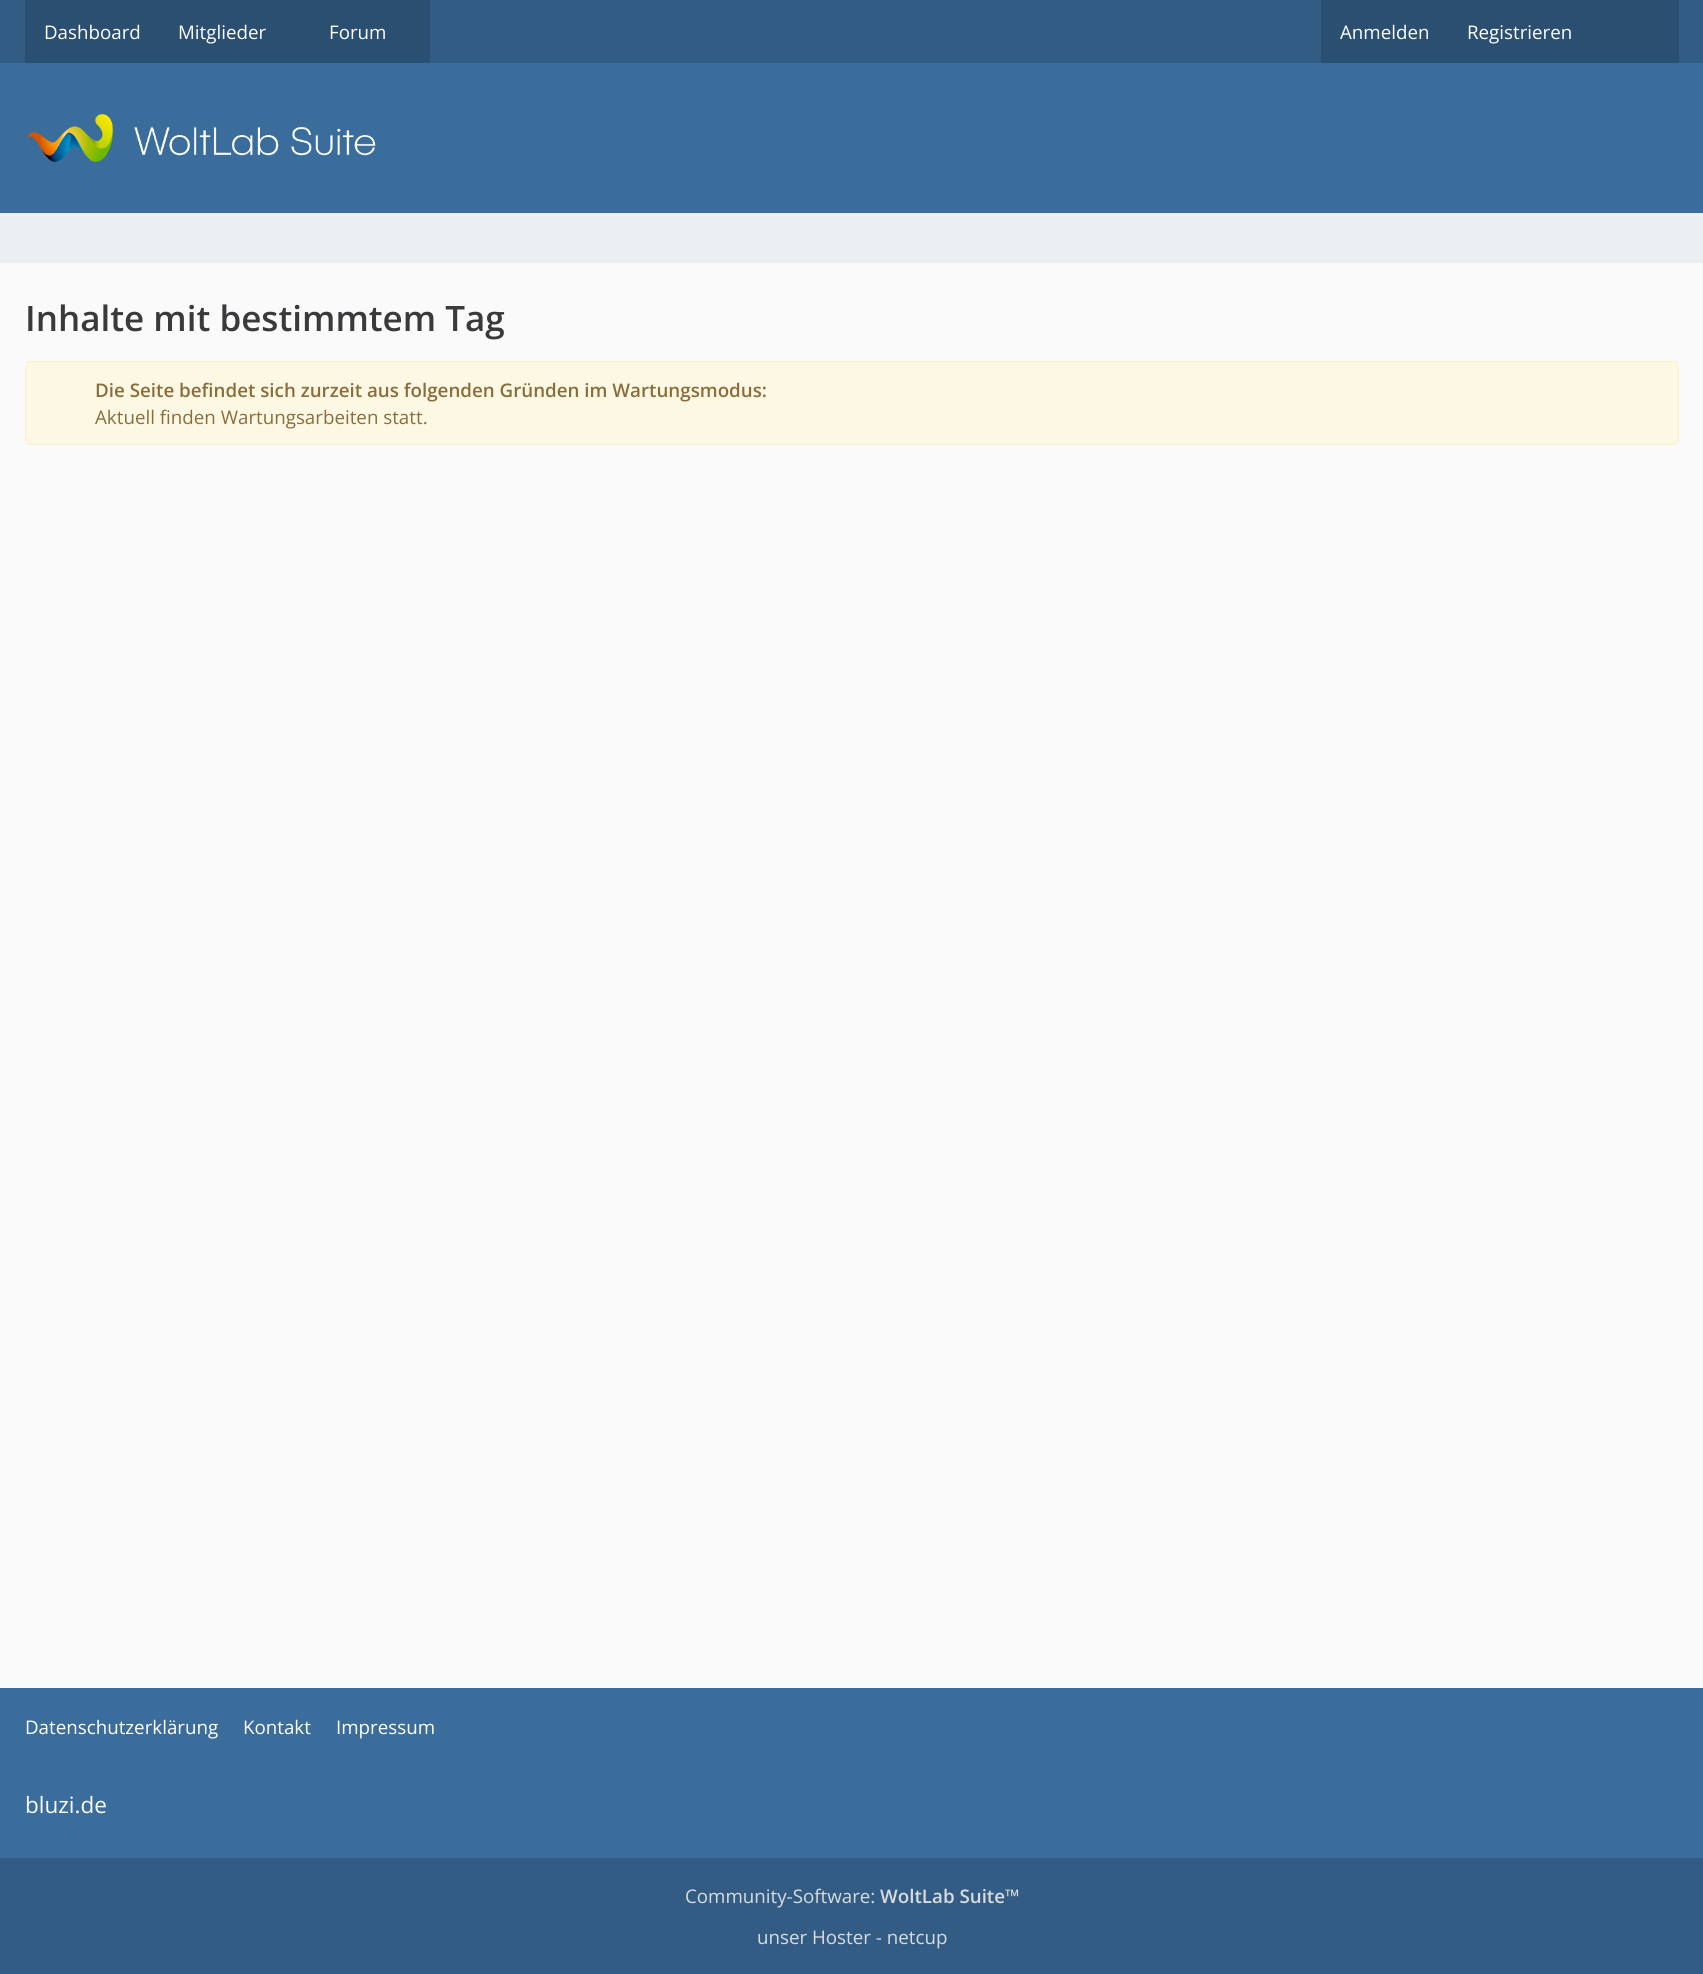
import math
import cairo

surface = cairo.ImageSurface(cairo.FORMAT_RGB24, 1703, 1974)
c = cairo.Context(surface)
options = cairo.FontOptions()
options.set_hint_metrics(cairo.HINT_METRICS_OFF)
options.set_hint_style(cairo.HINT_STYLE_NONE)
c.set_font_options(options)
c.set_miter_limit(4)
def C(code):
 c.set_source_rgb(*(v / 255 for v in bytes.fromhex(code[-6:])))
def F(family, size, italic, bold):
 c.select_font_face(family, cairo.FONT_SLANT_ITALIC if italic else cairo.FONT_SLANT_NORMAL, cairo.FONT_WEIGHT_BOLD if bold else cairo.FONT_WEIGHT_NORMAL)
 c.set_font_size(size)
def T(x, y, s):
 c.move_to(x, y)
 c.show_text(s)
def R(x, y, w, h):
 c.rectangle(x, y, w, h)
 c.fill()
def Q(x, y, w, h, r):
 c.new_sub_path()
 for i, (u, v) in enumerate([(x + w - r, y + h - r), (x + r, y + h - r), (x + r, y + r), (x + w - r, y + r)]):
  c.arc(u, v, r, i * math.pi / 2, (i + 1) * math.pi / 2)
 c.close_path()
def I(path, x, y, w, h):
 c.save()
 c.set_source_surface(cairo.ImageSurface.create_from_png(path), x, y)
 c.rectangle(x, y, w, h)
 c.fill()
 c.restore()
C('fafafa')
c.paint()
C('3a6d9c')
R(0,63,1703,150)
C('325c84')
R(0,0,1703,63)
C('2b4f71')
R(25,0,405,63)
F('Open Sans',18.75,0,0)
C('ffffff')
T(44,39,'Dashboard')
T(178,39,'Mitglieder')
T(329,39,'Forum')
C('2b4f71')
R(1321,0,358,63)
C('ffffff')
T(1340,39,'Anmelden')
T(1467,39,'Registrieren')
I('1.png',26,114,350,48)
C('eceff1')
R(0,213,1703,50)
F('Open Sans SemiBold',35,0,0)
C('3a3a3d')
T(25,331,'Inhalte mit bestimmtem Tag')
C('fcf8e3')
Q(25.5,361.5,1653,83,4.5)
c.fill_preserve()
C('faf2cc')
c.set_line_width(1)
c.stroke()
F('Open Sans SemiBold',18.75,0,0)
C('8a6d3b')
T(95,397,'Die Seite befindet sich zurzeit aus folgenden Gründen im Wartungsmodus:')
F('Open Sans',18.75,0,0)
T(95,424,'Aktuell finden Wartungsarbeiten statt.')
C('3a6d9c')
R(0,1688,1703,170)
C('ffffff')
T(25,1734,'Datenschutzerklärung')
T(243,1734,'Kontakt')
T(336,1734,'Impressum')
F('Open Sans',22.5,0,0)
T(25,1813,'bluzi.de')
C('325c84')
R(0,1858,1703,116)
F('Open Sans',18.75,0,0)
C('d9dcde')
T(685,1903,'Community-Software:')
F('Open Sans SemiBold',18.75,0,0)
T(880,1903,'WoltLab Suite™')
F('Open Sans',18.75,0,0)
T(757,1944,'unser Hoster - netcup')
surface.write_to_png('o.png')
